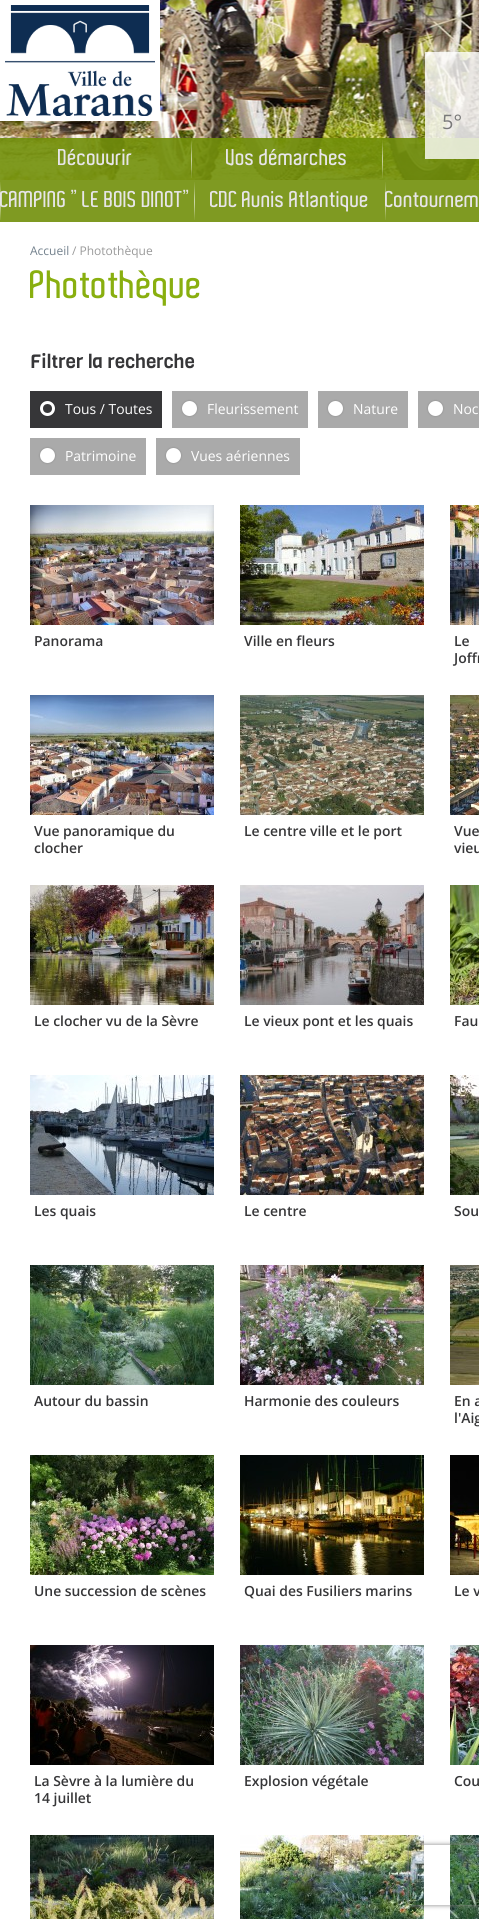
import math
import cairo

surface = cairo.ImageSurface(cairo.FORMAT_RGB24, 479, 1919)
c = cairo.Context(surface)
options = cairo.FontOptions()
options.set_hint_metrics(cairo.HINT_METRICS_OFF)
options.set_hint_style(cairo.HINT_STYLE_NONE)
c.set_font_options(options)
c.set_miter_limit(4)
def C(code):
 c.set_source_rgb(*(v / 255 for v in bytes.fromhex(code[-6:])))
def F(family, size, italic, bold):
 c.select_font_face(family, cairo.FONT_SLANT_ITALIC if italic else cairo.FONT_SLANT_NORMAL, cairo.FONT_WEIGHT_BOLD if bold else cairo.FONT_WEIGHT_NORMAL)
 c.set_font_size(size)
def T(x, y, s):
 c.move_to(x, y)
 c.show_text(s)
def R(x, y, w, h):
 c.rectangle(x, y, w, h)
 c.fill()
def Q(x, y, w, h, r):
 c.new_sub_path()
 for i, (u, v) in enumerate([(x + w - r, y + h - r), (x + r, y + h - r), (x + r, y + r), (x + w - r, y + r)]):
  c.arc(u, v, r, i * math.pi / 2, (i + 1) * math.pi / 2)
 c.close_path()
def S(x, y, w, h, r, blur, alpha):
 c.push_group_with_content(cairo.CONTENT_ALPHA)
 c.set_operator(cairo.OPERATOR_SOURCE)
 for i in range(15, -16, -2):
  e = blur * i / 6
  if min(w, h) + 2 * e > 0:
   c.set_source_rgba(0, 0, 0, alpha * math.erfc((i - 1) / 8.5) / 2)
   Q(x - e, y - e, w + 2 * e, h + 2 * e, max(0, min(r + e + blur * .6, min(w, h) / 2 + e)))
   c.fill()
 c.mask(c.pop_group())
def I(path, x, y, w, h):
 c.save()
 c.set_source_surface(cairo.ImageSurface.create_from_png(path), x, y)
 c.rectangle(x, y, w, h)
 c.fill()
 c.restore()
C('ffffff')
c.paint()
I('1.png',0,0,479,180)
C('ffffff')
R(0,0,160,121)
I('2.png',5,5,150,111)
c.set_source_rgba(0.443,0.561,0.035,0.9)
R(382,138,97,42)
c.set_source_rgba(1,1,1,0.8)
R(425,52,54,107)
F('Open Sans',20,0,0)
C('797979')
T(442,129,'5°')
c.set_source_rgba(0.443,0.561,0.035,0.9)
R(0,138,191,42)
F('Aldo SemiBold',22,0,0)
C('e7e5e8')
T(58,165,'Découvrir')
c.set_source_rgba(0.443,0.561,0.035,0.9)
R(191,138,191,42)
I('3.png',191,140,1,38)
C('e7e5e8')
T(226,165,'Vos démarches')
I('4.png',382,140,1,38)
C('7f9a22')
R(0,180,479,42)
I('5.png',0,182,1,38)
C('e7e5e8')
T(0,207,'CAMPING "LE BOIS DINOT"')
I('5.png',194,182,1,38)
T(210,207,'CDC Aunis Atlantique')
I('5.png',385,182,1,38)
T(385,207,'Contournem')
F('Open Sans',12,0,0)
C('73818d')
T(30,255,'Accueil')
C('9a9a9a')
T(72,255,'/ Photothèque')
F('Aldo SemiBold',38,0,0)
C('89af0f')
T(30,298,'Photothèque')
F('Viga',19,0,0)
C('363638')
T(30,368,'Filtrer la recherche')
R(30,391,132,37)
C('000000')
S(40,401,15,15,7.5,1,.2)
C('ffffff')
c.arc(47.5,408.5,7.5,0,2 * math.pi)
c.fill()
C('363638')
c.arc(47.5,408.5,4.5,0,2 * math.pi)
c.fill()
F('Open Sans',13.9,0,0)
C('ffffff')
T(65,414,'Tous / Toutes')
C('aaaaaa')
R(172,391,136,37)
C('000000')
S(182,401,15,15,7.5,1,.2)
C('ffffff')
c.arc(189.5,408.5,7.5,0,2 * math.pi)
c.fill()
T(207,414,'Fleurissement')
C('aaaaaa')
R(318,391,90,37)
C('000000')
S(328,401,15,15,7.5,1,.2)
C('ffffff')
c.arc(335.5,408.5,7.5,0,2 * math.pi)
c.fill()
T(353,414,'Nature')
C('aaaaaa')
R(418,391,61,37)
C('000000')
S(428,401,15,15,7.5,1,.2)
C('ffffff')
c.arc(435.5,408.5,7.5,0,2 * math.pi)
c.fill()
T(453,414,'Noc')
C('aaaaaa')
R(30,438,116,37)
C('000000')
S(40,448,15,15,7.5,1,.2)
C('ffffff')
c.arc(47.5,455.5,7.5,0,2 * math.pi)
c.fill()
T(65,461,'Patrimoine')
C('aaaaaa')
R(156,438,144,37)
C('000000')
S(166,448,15,15,7.5,1,.2)
C('ffffff')
c.arc(173.5,455.5,7.5,0,2 * math.pi)
c.fill()
T(191,461,'Vues aériennes')
I('6.png',30,505,184,120)
F('Open Sans SemiBold',13.9,0,0)
C('363638')
T(34,646,'Panorama')
I('7.png',240,505,184,120)
T(244,646,'Ville en fleurs')
I('8.png',450,505,29,120)
T(454,646,'Le')
T(454,663,'Joffr')
I('9.png',30,695,184,120)
T(34,836,'Vue panoramique du')
T(34,853,'clocher')
I('10.png',240,695,184,120)
T(244,836,'Le centre ville et le port')
I('11.png',450,695,29,120)
T(454,836,'Vue')
T(454,853,'vieu')
I('12.png',30,885,184,120)
T(34,1026,'Le clocher vu de la Sèvre')
I('13.png',240,885,184,120)
T(244,1026,'Le vieux pont et les quais')
I('14.png',450,885,29,120)
T(454,1026,'Fau')
I('15.png',30,1075,184,120)
T(34,1216,'Les quais')
I('16.png',240,1075,184,120)
T(244,1216,'Le centre')
I('17.png',450,1075,29,120)
T(454,1216,'Sou')
I('18.png',30,1265,184,120)
T(34,1406,'Autour du bassin')
I('19.png',240,1265,184,120)
T(244,1406,'Harmonie des couleurs')
I('20.png',450,1265,29,120)
T(454,1406,'En a')
T(454,1423,'l\'Aig')
I('21.png',30,1455,184,120)
T(34,1596,'Une succession de scènes')
I('22.png',240,1455,184,120)
T(244,1596,'Quai des Fusiliers marins')
I('23.png',450,1455,29,120)
T(454,1596,'Le v')
I('24.png',30,1645,184,120)
T(34,1786,'La Sèvre à la lumière du')
T(34,1803,'14 juillet')
I('25.png',240,1645,184,120)
T(244,1786,'Explosion végétale')
I('26.png',450,1645,29,120)
T(454,1786,'Cou')
I('27.png',30,1835,184,84)
I('28.png',240,1835,184,84)
I('29.png',450,1835,29,84)
c.save()
c.set_fill_rule(cairo.FILL_RULE_EVEN_ODD)
c.new_path()
c.move_to(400,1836)
c.line_to(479,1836)
c.line_to(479,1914)
c.line_to(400,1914)
c.close_path()
c.move_to(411,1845)
c.line_to(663,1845)
c.curve_to(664,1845,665,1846,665,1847)
c.line_to(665,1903)
c.curve_to(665,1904,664,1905,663,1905)
c.line_to(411,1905)
c.curve_to(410,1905,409,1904,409,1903)
c.line_to(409,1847)
c.curve_to(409,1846,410,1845,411,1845)
c.close_path()
c.clip()
C('808080')
S(409,1845,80,60,2,2.5,1)
c.restore()
surface.write_to_png('o.png')
